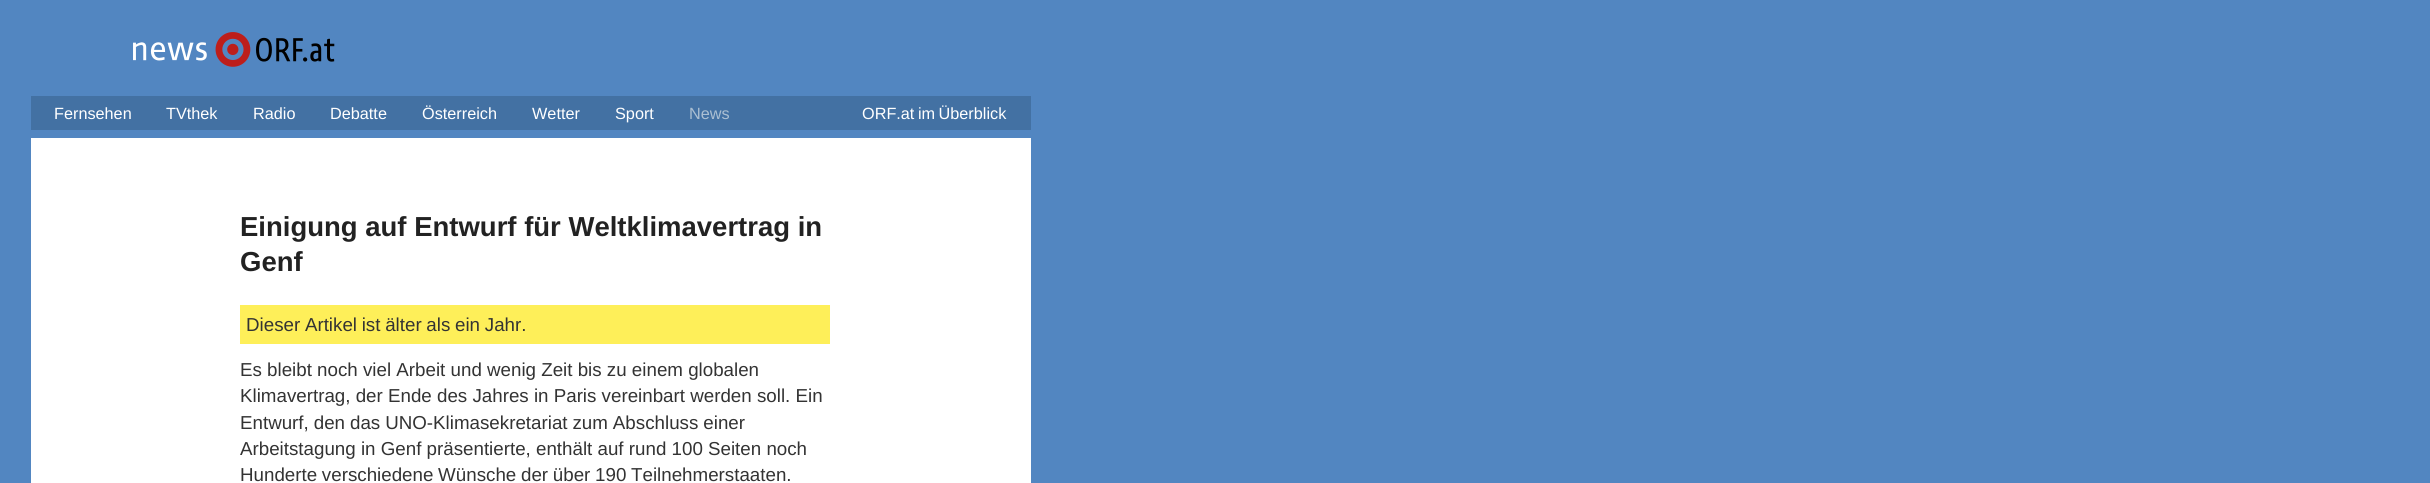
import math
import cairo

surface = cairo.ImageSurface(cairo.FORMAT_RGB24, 2430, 483)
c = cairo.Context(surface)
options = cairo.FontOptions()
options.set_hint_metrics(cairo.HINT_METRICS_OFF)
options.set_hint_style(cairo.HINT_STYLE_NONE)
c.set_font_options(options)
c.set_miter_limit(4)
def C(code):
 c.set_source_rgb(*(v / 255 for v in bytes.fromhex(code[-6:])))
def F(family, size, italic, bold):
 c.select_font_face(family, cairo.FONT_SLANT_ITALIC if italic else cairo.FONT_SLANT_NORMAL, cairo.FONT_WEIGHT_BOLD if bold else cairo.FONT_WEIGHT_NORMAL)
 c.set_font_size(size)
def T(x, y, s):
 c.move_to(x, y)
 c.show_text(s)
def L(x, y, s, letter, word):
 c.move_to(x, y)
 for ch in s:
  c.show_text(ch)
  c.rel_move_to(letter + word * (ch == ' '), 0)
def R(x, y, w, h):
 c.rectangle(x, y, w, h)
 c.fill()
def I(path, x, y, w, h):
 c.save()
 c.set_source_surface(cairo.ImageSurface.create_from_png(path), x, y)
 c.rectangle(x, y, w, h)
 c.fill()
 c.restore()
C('5286c1')
c.paint()
I('1.png',133,42,74,19)
I('2.png',215,32,120,35)
C('4371a3')
R(31,96,1000,34)
F('Liberation Sans',16.25,0,0)
C('ffffff')
T(54,119,'Fernsehen')
T(166,119,'TVthek')
T(253,119,'Radio')
T(330,119,'Debatte')
T(422,119,'Österreich')
T(532,119,'Wetter')
T(615,119,'Sport')
C('abbfd2')
T(689,119,'News')
C('ffffff')
L(862,119,'ORF.at im Überblick',0,-1)
R(31,138,1000,345)
F('Liberation Sans',27.5,0,1)
C('222222')
T(240,236,'Einigung auf Entwurf für Weltklimavertrag in')
T(240,271,'Genf')
C('feef59')
R(240,305,590,39)
F('Liberation Sans',18.75,0,0)
C('333333')
L(246,331,'Dieser Artikel ist älter als ein Jahr.',0,-.5)
T(240,376,'Es bleibt noch viel Arbeit und wenig Zeit bis zu einem globalen')
T(240,402,'Klimavertrag, der Ende des Jahres in Paris vereinbart werden soll. Ein')
L(240,429,'Entwurf, den das UNO-Klimasekretariat zum Abschluss einer',0,-.25)
T(240,455,'Arbeitstagung in Genf präsentierte, enthält auf rund 100 Seiten noch')
L(240,481,'Hunderte verschiedene Wünsche der über 190 Teilnehmerstaaten.',0,-.5)
surface.write_to_png('o.png')
